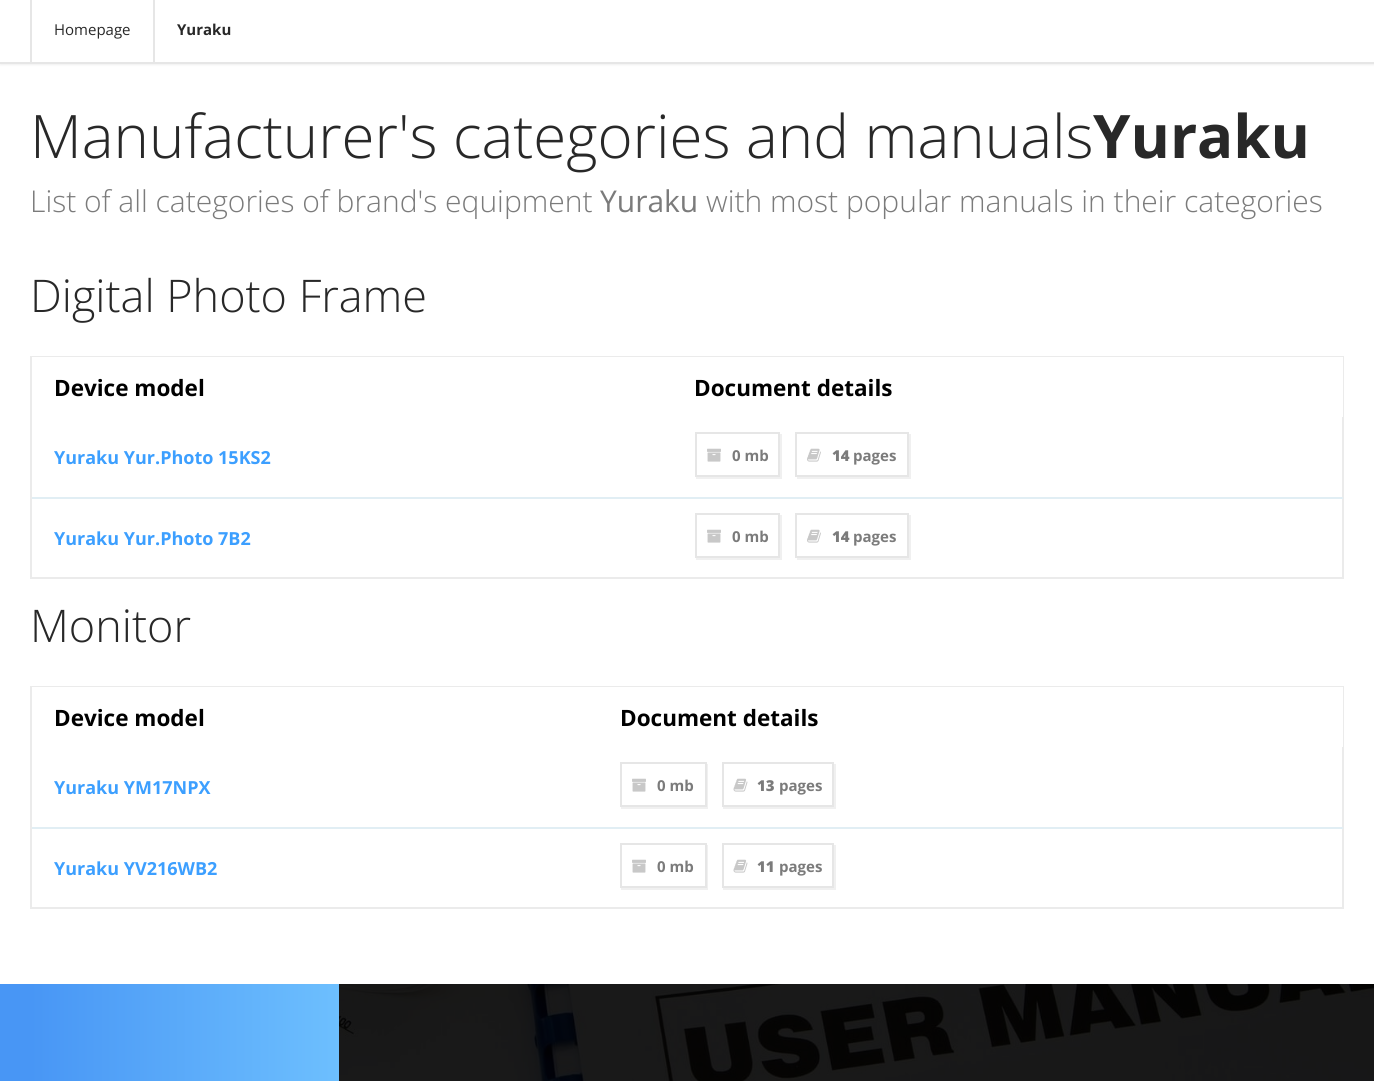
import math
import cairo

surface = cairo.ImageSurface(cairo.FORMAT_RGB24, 1374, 1081)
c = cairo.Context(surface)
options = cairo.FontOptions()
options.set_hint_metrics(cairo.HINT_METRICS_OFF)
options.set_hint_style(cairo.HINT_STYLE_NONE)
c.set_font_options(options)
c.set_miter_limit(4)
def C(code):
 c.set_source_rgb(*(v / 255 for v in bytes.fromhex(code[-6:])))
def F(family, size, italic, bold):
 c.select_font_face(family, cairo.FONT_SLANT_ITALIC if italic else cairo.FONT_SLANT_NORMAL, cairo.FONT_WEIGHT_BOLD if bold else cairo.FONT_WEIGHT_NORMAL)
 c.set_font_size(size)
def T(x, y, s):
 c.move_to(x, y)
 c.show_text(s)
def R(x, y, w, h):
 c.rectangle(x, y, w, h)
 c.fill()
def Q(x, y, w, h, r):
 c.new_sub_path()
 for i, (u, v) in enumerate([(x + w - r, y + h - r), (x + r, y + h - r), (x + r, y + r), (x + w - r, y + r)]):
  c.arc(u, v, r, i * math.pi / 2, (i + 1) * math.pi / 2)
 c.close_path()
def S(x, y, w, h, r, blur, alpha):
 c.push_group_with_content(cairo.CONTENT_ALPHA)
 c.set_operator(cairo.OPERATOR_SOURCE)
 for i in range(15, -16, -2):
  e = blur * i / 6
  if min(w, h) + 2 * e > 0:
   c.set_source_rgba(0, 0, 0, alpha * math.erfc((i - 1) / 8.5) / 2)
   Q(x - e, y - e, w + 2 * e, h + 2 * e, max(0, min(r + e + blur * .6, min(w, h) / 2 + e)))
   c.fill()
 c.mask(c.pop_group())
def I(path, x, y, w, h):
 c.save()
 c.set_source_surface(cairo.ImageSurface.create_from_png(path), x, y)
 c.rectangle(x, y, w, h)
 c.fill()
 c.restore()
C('ffffff')
c.paint()
c.save()
c.rectangle(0,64,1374,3)
c.clip()
C('f0f0f0')
S(0,-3,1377,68,0,1,1)
c.restore()
C('e6e6e6')
R(0,62,1374,2)
R(30,0,2,62)
F('Open Sans',15,0,0)
C('282828')
T(54,35,'Homepage')
C('e6e6e6')
R(153,0,2,62)
F('Open Sans',15,0,1)
C('282828')
T(177,35,'Yuraku')
F('Open Sans Light',60,0,0)
T(30,158,'Manufacturer\'s categories and manuals')
F('Open Sans',60,0,1)
T(1093,158,'Yuraku')
F('Open Sans Light',30,0,0)
C('7b7b7b')
T(30,212,'List of all categories of brand\'s equipment')
F('Open Sans',30,0,0)
T(600,212,'Yuraku')
F('Open Sans Light',30,0,0)
T(706,212,'with most popular manuals in their categories')
F('Open Sans Light',45,0,0)
C('282828')
T(30,312,'Digital Photo Frame')
c.rectangle(31,357,1312,221)
C('ebebeb')
c.stroke()
C('ffffff')
R(32,357,640,1)
F('Open Sans',22.5,0,1)
C('000000')
T(54,396,'Device model')
C('ffffff')
R(672,357,671,60)
C('000000')
T(694,396,'Document details')
F('Open Sans',18,0,1)
C('3c9fff')
T(54,464,'Yuraku Yur.Photo 15KS2')
C('e1eef4')
R(32,497,1311,2)
C('f0f0f0')
c.new_path()
c.move_to(696,477)
c.line_to(696,479)
c.line_to(782,479)
c.line_to(782,434)
c.line_to(780,434)
c.line_to(780,477)
c.close_path()
c.fill()
c.rectangle(696,433,83,43)
C('e6e6e6')
c.stroke()
I('1.png',707,448,14,14)
F('Open Sans',15,0,1)
C('7b7b7b')
T(732,461,'0 mb')
C('f0f0f0')
c.new_path()
c.move_to(797,477)
c.line_to(797,479)
c.line_to(911,479)
c.line_to(911,434)
c.line_to(909,434)
c.line_to(909,477)
c.close_path()
c.fill()
c.rectangle(796,433,112,43)
C('e6e6e6')
c.stroke()
I('2.png',807,448,14,14)
F('Open Sans ExtraBold',15,0,0)
C('7b7b7b')
T(832,461,'14')
F('Open Sans',15,0,1)
T(853,461,'pages')
F('Open Sans',18,0,1)
C('3c9fff')
T(54,545,'Yuraku Yur.Photo 7B2')
C('f0f0f0')
c.new_path()
c.move_to(696,558)
c.line_to(696,560)
c.line_to(782,560)
c.line_to(782,515)
c.line_to(780,515)
c.line_to(780,558)
c.close_path()
c.fill()
c.rectangle(696,514,83,43)
C('e6e6e6')
c.stroke()
I('1.png',707,529,14,14)
F('Open Sans',15,0,1)
C('7b7b7b')
T(732,542,'0 mb')
C('f0f0f0')
c.new_path()
c.move_to(797,558)
c.line_to(797,560)
c.line_to(911,560)
c.line_to(911,515)
c.line_to(909,515)
c.line_to(909,558)
c.close_path()
c.fill()
c.rectangle(796,514,112,43)
C('e6e6e6')
c.stroke()
I('2.png',807,529,14,14)
F('Open Sans ExtraBold',15,0,0)
C('7b7b7b')
T(832,542,'14')
F('Open Sans',15,0,1)
T(853,542,'pages')
F('Open Sans Light',45,0,0)
C('282828')
T(30,642,'Monitor')
c.rectangle(31,687,1312,221)
C('ebebeb')
c.stroke()
C('ffffff')
R(32,687,565,1)
F('Open Sans',22.5,0,1)
C('000000')
T(54,726,'Device model')
C('ffffff')
R(597,687,746,60)
C('000000')
T(620,726,'Document details')
F('Open Sans',18,0,1)
C('3c9fff')
T(54,794,'Yuraku YM17NPX')
C('e1eef4')
R(32,827,1311,2)
C('f0f0f0')
c.new_path()
c.move_to(621,807)
c.line_to(621,809)
c.line_to(708,809)
c.line_to(708,764)
c.line_to(706,764)
c.line_to(706,807)
c.close_path()
c.fill()
c.rectangle(621,763,85,43)
C('e6e6e6')
c.stroke()
I('1.png',632,778,14,14)
F('Open Sans',15,0,1)
C('7b7b7b')
T(657,791,'0 mb')
C('f0f0f0')
c.new_path()
c.move_to(723,807)
c.line_to(723,809)
c.line_to(836,809)
c.line_to(836,764)
c.line_to(834,764)
c.line_to(834,807)
c.close_path()
c.fill()
c.rectangle(723,763,110,43)
C('e6e6e6')
c.stroke()
I('3.png',733,778,15,14)
F('Open Sans ExtraBold',15,0,0)
C('7b7b7b')
T(757,791,'13')
F('Open Sans',15,0,1)
T(779,791,'pages')
F('Open Sans',18,0,1)
C('3c9fff')
T(54,875,'Yuraku YV216WB2')
C('f0f0f0')
c.new_path()
c.move_to(621,888)
c.line_to(621,890)
c.line_to(708,890)
c.line_to(708,845)
c.line_to(706,845)
c.line_to(706,888)
c.close_path()
c.fill()
c.rectangle(621,844,85,43)
C('e6e6e6')
c.stroke()
I('1.png',632,859,14,14)
F('Open Sans',15,0,1)
C('7b7b7b')
T(657,872,'0 mb')
C('f0f0f0')
c.new_path()
c.move_to(723,888)
c.line_to(723,890)
c.line_to(836,890)
c.line_to(836,845)
c.line_to(834,845)
c.line_to(834,888)
c.close_path()
c.fill()
c.rectangle(723,844,110,43)
C('e6e6e6')
c.stroke()
I('3.png',733,859,15,14)
F('Open Sans ExtraBold',15,0,0)
C('7b7b7b')
T(757,872,'11')
F('Open Sans',15,0,1)
T(779,872,'pages')
C('010101')
R(339,984,1035,97)
C('4896f5')
R(0,984,30,97)
gradient = cairo.LinearGradient(30,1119,339,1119)
gradient.add_color_stop_rgba(0,0.282,0.588,0.961,1)
gradient.add_color_stop_rgba(1,0.427,0.749,0.996,1)
c.set_source(gradient)
R(30,984,309,97)
I('4.png',339,984,1035,97)
surface.write_to_png('o.png')
